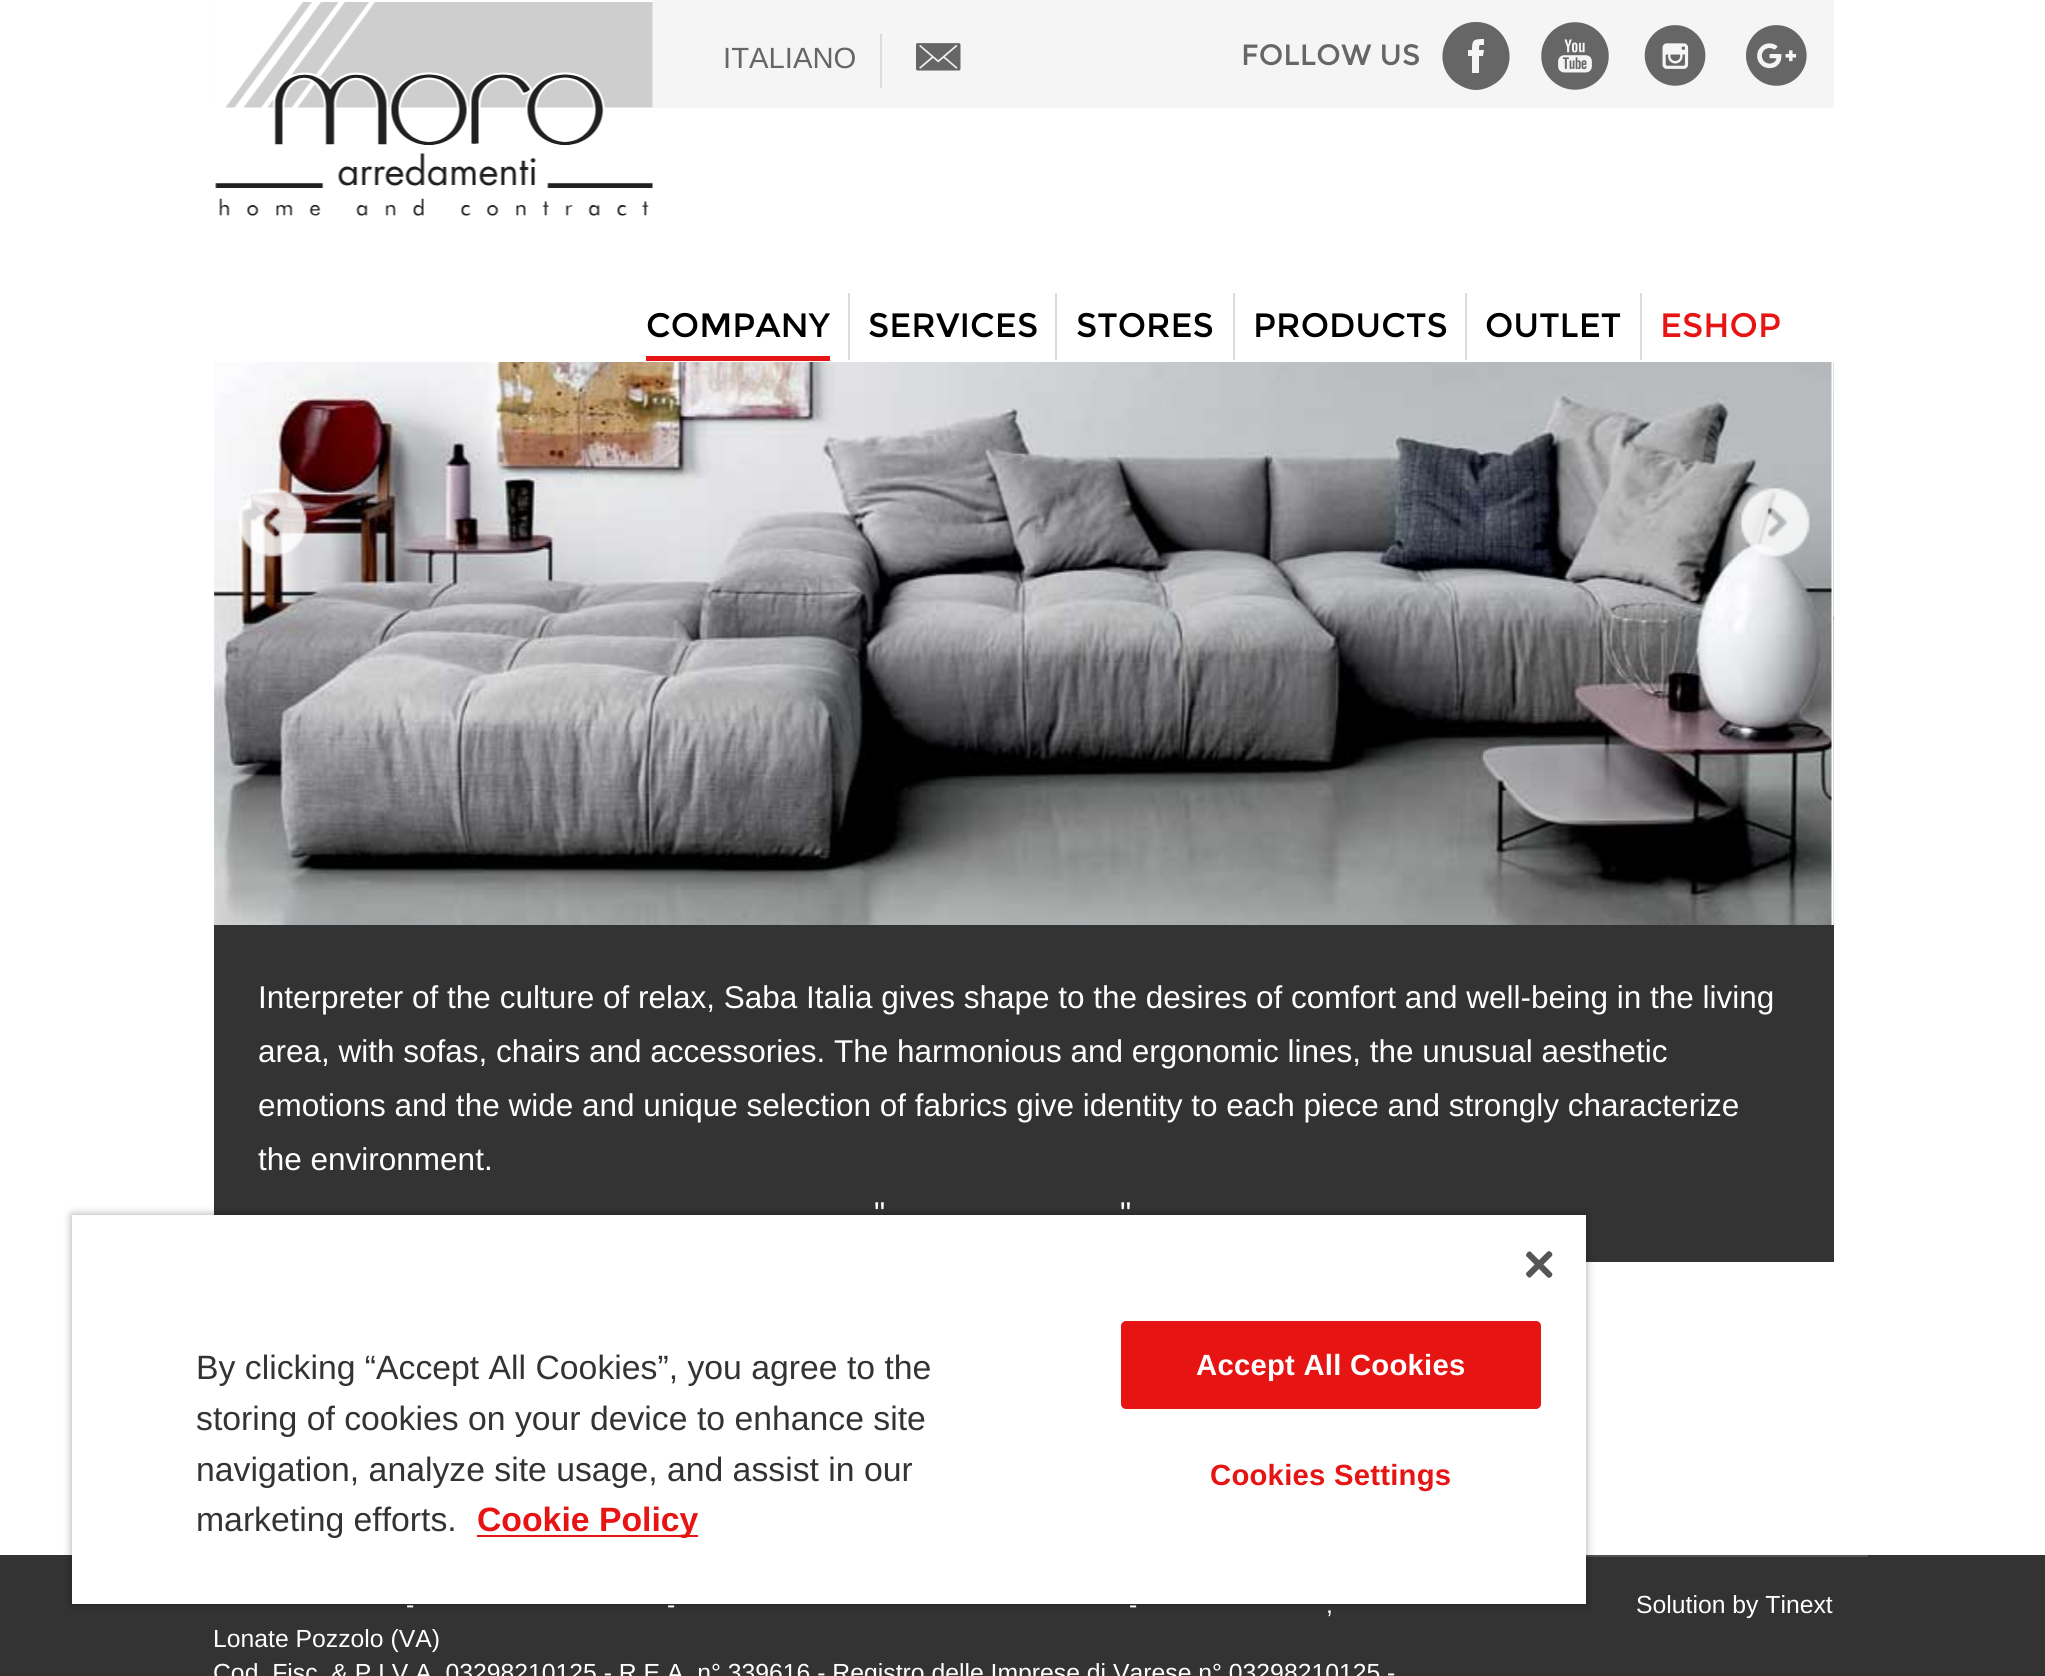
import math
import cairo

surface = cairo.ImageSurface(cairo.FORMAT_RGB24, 2045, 1676)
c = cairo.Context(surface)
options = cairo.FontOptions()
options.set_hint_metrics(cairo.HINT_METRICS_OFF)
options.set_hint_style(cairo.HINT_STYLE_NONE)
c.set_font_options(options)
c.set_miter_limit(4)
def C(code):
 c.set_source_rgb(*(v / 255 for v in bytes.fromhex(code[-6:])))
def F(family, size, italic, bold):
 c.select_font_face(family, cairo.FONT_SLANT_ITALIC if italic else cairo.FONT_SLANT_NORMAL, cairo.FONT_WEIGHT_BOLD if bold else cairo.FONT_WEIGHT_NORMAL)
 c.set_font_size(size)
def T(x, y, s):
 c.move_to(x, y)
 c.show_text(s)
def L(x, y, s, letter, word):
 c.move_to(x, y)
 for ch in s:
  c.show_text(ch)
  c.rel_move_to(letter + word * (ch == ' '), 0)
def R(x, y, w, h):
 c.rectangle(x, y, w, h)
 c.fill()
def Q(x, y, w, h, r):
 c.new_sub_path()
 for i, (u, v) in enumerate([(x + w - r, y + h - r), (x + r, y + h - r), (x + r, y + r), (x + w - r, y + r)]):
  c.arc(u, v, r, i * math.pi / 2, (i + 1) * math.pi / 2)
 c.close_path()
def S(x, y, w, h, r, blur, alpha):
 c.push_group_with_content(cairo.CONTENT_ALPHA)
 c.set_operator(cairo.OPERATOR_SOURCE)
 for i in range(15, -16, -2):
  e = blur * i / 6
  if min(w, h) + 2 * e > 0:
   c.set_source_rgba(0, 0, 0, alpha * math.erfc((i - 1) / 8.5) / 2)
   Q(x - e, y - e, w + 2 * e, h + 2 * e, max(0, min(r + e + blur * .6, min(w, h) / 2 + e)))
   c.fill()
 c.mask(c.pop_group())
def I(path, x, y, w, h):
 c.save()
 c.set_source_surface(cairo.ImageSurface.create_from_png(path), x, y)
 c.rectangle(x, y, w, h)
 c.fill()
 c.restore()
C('ffffff')
c.paint()
C('f5f5f5')
R(214,0,1620,108)
I('1.png',214,0,439,216)
C('dbdbdb')
R(880,34,2,54)
F('Liberation Sans',29.25,0,0)
C('666666')
T(723,68,'ITALIANO')
I('2.png',916,43,45,28)
F('Montserrat',29.25,0,0)
T(1241,65,'FOLLOW US')
c.new_path()
c.move_to(1476,22)
c.curve_to(1444,22,1430,64,1456,83)
c.curve_to(1462,87,1469,90,1476,90)
c.curve_to(1483,90,1490,87,1496,83)
c.curve_to(1522,64,1508,22,1476,22)
c.close_path()
c.move_to(1483,56)
c.line_to(1479,56)
c.line_to(1479,73)
c.line_to(1472,73)
c.line_to(1472,56)
c.line_to(1468,56)
c.line_to(1468,50)
c.line_to(1472,50)
c.curve_to(1472,40,1473,39,1484,39)
c.line_to(1484,45)
c.curve_to(1479,45,1479,44,1479,50)
c.line_to(1484,50)
c.close_path()
c.fill()
I('3.png',1541,22,68,68)
I('4.png',1644,25,62,61)
I('5.png',1746,25,61,61)
C('e71414')
R(646,356,184,5)
F('Montserrat',33.75,0,0)
C('000000')
T(646,337,'COMPANY')
C('dbdbdb')
R(848,293,2,67)
C('000000')
T(868,337,'SERVICES')
C('dbdbdb')
R(1055,293,2,67)
C('000000')
T(1076,337,'STORES')
C('dbdbdb')
R(1233,293,2,67)
C('000000')
T(1253,337,'PRODUCTS')
C('dbdbdb')
R(1465,293,2,67)
C('000000')
T(1485,337,'OUTLET')
C('dbdbdb')
R(1640,293,2,67)
C('e71414')
T(1660,337,'ESHOP')
C('333333')
R(214,925,1620,337)
I('6.png',214,362,1618,563)
I('7.png',1833,362,1,563)
I('8.png',238,488,71,69)
I('9.png',1739,488,71,69)
F('Liberation Sans',31.5,0,0)
C('ffffff')
T(258,1008,'Interpreter of the culture of relax, Saba Italia gives shape to the desires of comfort and well-being in the living')
T(258,1062,'area, with sofas, chairs and accessories. The harmonious and ergonomic lines, the unusual aesthetic')
T(258,1116,'emotions and the wide and unique selection of fabrics give identity to each piece and strongly characterize')
T(258,1170,'the environment.')
T(874,1224,'"')
T(1120,1224,'"')
C('333333')
R(0,1555,2045,121)
C('515151')
R(1586,1555,282,2)
C('000000')
S(72,1215,1514,389,0,4.5,.35)
C('ffffff')
R(72,1215,1514,389)
I('10.png',1526,1251,27,27)
F('Liberation Sans',33.75,0,0)
C('333333')
T(196,1379,'By clicking “Accept All Cookies”, you agree to the')
T(196,1430,'storing of cookies on your device to enhance site')
T(196,1481,'navigation, analyze site usage, and assist in our')
T(196,1531,'marketing efforts.')
C('e71414')
R(477,1535,221,2)
F('Liberation Sans',33.75,0,1)
T(477,1531,'Cookie Policy')
Q(1122,1322,418,86,4)
c.fill_preserve()
c.stroke()
F('Liberation Sans',29.25,0,1)
C('ffffff')
L(1196,1375,'Accept All Cookies',.25,0)
C('e71414')
L(1210,1485,'Cookies Settings',.25,0)
F('Liberation Sans',24.75,0,0)
C('ffffff')
T(406,1613,'-')
T(667,1613,'-')
T(1129,1613,'-')
T(1326,1613,',')
T(213,1647,'Lonate Pozzolo (VA)')
T(213,1681,'Cod. Fisc. & P.I.V.A. 03298210125 - R.E.A. n° 339616 - Registro delle Imprese di Varese n° 03298210125 -')
T(1636,1613,'Solution by Tinext')
surface.write_to_png('o.png')
